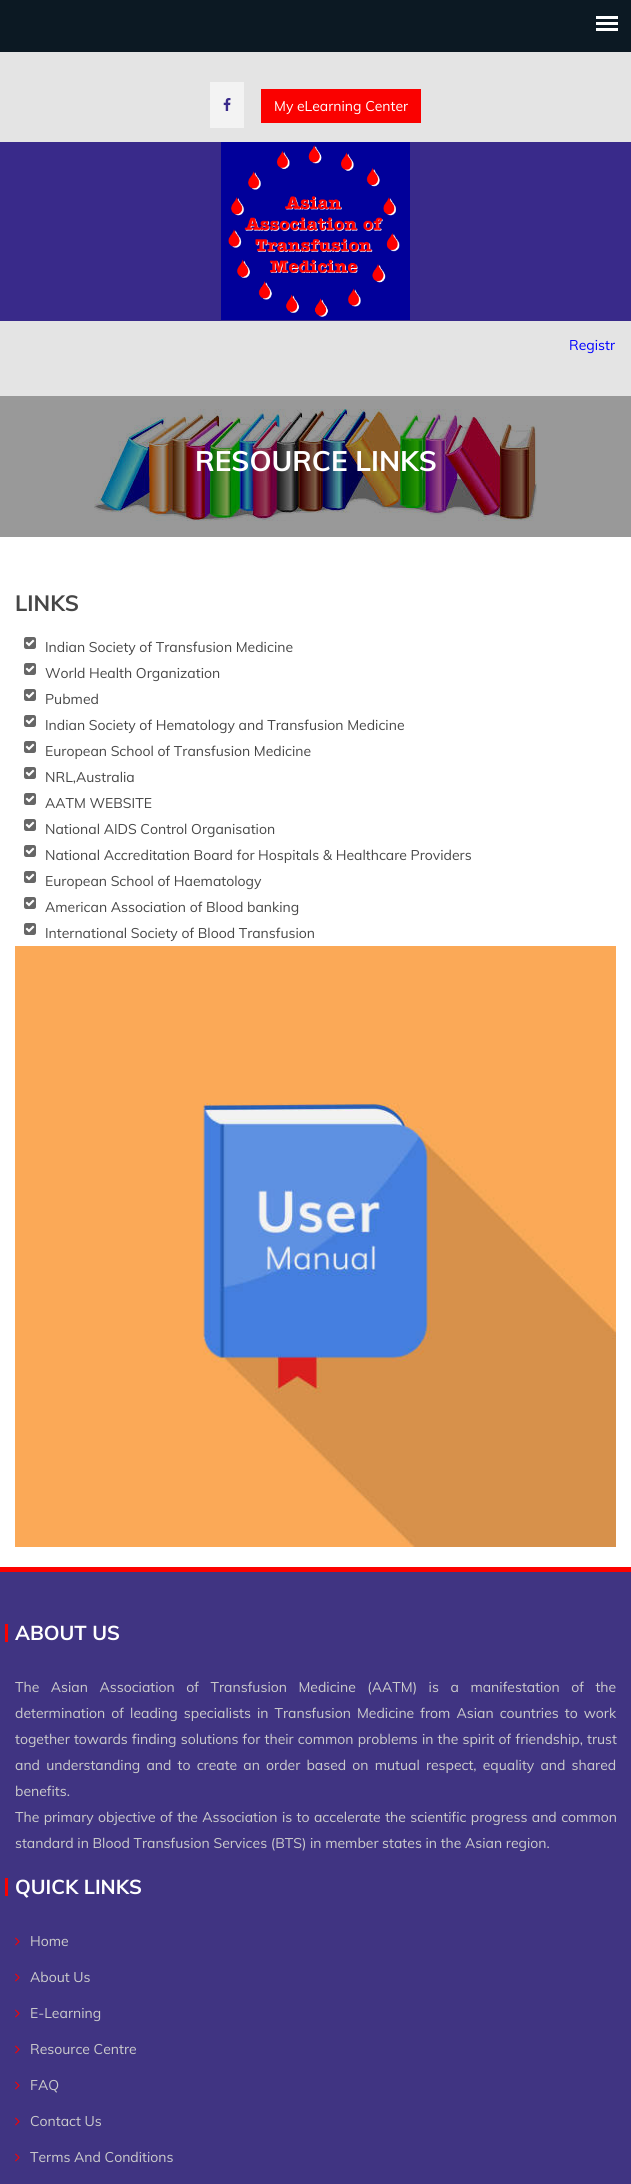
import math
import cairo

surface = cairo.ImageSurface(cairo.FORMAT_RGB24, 631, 2184)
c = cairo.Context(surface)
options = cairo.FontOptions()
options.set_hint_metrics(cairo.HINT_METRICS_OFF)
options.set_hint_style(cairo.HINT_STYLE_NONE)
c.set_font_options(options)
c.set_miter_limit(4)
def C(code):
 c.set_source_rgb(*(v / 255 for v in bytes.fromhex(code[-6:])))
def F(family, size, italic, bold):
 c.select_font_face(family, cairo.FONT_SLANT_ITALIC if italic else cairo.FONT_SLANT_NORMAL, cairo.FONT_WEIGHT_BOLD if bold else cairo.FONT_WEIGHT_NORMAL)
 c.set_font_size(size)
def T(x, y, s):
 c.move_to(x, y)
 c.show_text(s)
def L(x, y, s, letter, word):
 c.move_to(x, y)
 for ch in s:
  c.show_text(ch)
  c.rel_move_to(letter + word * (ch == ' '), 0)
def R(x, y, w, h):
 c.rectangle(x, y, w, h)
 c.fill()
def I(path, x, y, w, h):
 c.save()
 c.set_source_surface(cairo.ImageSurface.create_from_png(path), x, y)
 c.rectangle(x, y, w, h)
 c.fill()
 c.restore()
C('ffffff')
c.paint()
C('999999')
R(0,396,631,141)
C('0c1923')
R(0,0,631,52)
C('ffffff')
R(596,16,22,3)
R(596,22,22,3)
R(596,28,22,3)
C('e4e4e4')
R(0,52,631,90)
C('f3f3f3')
R(210,82,34,46)
I('1.png',223,98,8,13)
C('fa0100')
R(261,89,160,34)
F('Muli',14,0,0)
C('ffffff')
T(274,111,'My eLearning Center')
C('392a8a')
R(0,142,631,179)
I('2.png',221,142,189,178)
C('e4e4e4')
R(0,321,631,75)
C('0000ff')
T(569,350,'Registr')
I('3.png',94,409,443,112)
F('Muli',28,0,1)
C('ffffff')
T(195,471,'RESOURCE LINKS')
F('Muli',22,0,1)
C('464646')
T(15,611,'LINKS')
I('4.png',24,637,12,12)
F('Muli',14,0,0)
T(45,652,'Indian Society of Transfusion Medicine')
I('4.png',24,663,12,12)
T(45,678,'World Health Organization')
I('4.png',24,689,12,12)
T(45,704,'Pubmed')
I('4.png',24,715,12,12)
T(45,730,'Indian Society of Hematology and Transfusion Medicine')
I('4.png',24,741,12,12)
T(45,756,'European School of Transfusion Medicine')
I('4.png',24,767,12,12)
T(45,782,'NRL,Australia')
I('4.png',24,793,12,12)
T(45,808,'AATM WEBSITE')
I('4.png',24,819,12,12)
T(45,834,'National AIDS Control Organisation')
I('4.png',24,845,12,12)
T(45,860,'National Accreditation Board for Hospitals & Healthcare Providers')
I('4.png',24,871,12,12)
T(45,886,'European School of Haematology')
I('4.png',24,897,12,12)
T(45,912,'American Association of Blood banking')
I('4.png',24,923,12,12)
T(45,938,'International Society of Blood Transfusion')
I('5.png',15,946,601,601)
C('403482')
R(0,1572,631,612)
C('fd0200')
R(0,1567,631,5)
C('fa0100')
R(5,1624,3,18)
F('Muli',20,0,1)
C('ffffff')
T(15,1640,'ABOUT US')
F('Muli',14,0,0)
C('cccccc')
L(15,1692,'The Asian Association of Transfusion Medicine (AATM) is a manifestation of the',0,7.9)
L(15,1718,'determination of leading specialists in Transfusion Medicine from Asian countries to work',0,2.4)
L(15,1744,'together towards finding solutions for their common problems in the spirit of friendship, trust',0,.5)
L(15,1770,'and understanding and to create an order based on mutual respect, equality and shared',0,2.5)
T(15,1796,'benefits.')
L(15,1822,'The primary objective of the Association is to accelerate the scientific progress and common',0,.75)
T(15,1848,'standard in Blood Transfusion Services (BTS) in member states in the Asian region.')
C('fa0100')
R(5,1878,3,18)
F('Muli',20,0,1)
C('ffffff')
T(15,1894,'QUICK LINKS')
I('6.png',15,1937,5,9)
F('Muli',14,0,0)
C('cccccc')
T(30,1946,'Home')
I('6.png',15,1973,5,9)
T(30,1982,'About Us')
I('6.png',15,2009,5,9)
T(30,2018,'E-Learning')
I('6.png',15,2045,5,9)
T(30,2054,'Resource Centre')
I('6.png',15,2081,5,9)
T(30,2090,'FAQ')
I('6.png',15,2117,5,9)
T(30,2126,'Contact Us')
I('6.png',15,2153,5,9)
T(30,2162,'Terms And Conditions')
surface.write_to_png('o.png')
